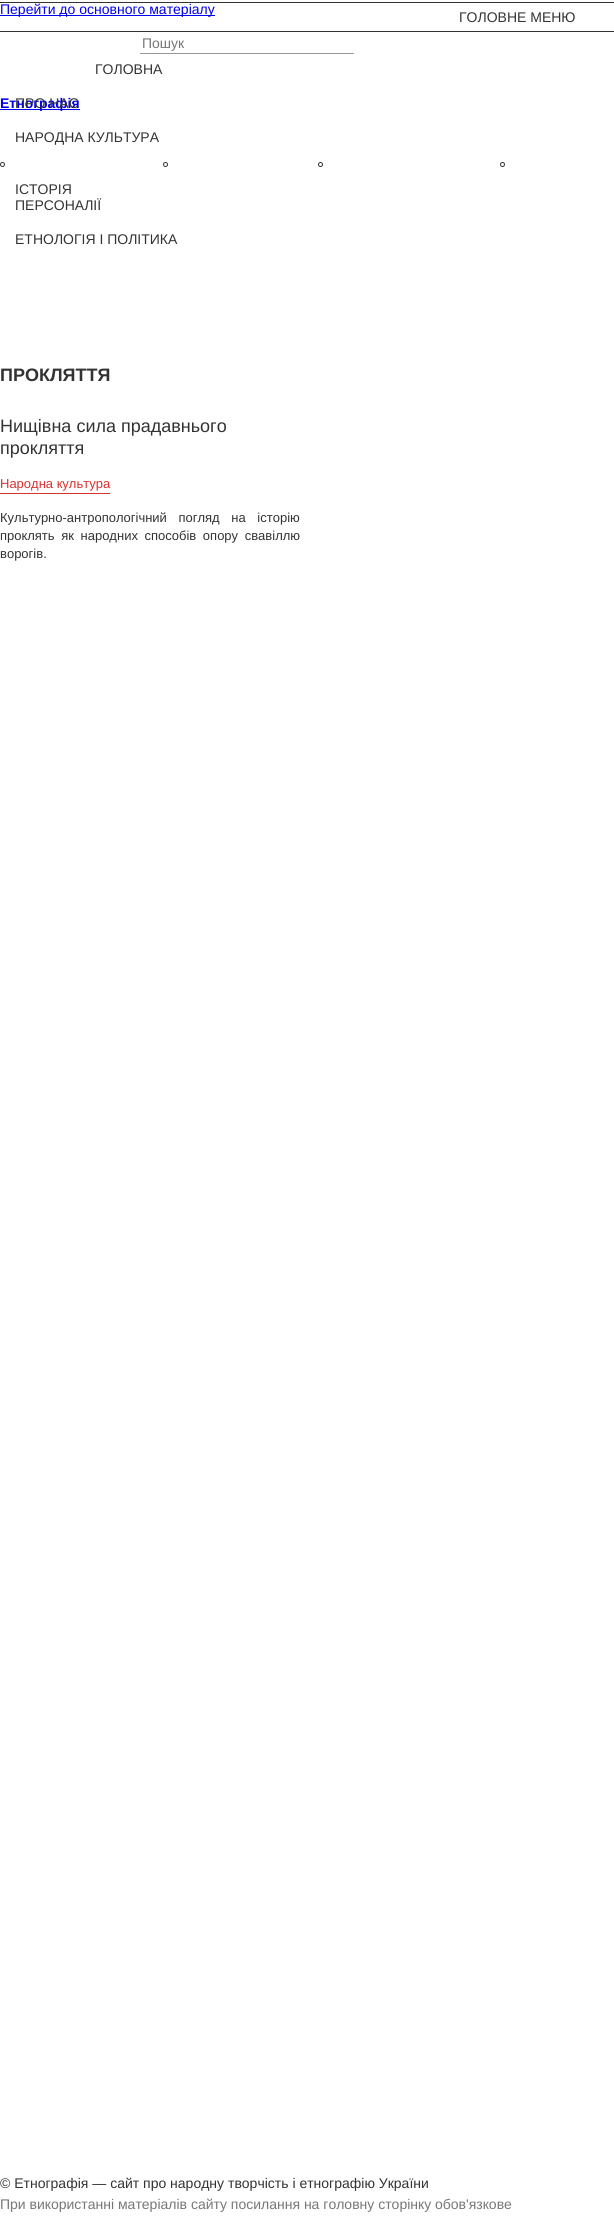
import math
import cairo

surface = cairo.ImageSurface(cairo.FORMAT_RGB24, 614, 2220)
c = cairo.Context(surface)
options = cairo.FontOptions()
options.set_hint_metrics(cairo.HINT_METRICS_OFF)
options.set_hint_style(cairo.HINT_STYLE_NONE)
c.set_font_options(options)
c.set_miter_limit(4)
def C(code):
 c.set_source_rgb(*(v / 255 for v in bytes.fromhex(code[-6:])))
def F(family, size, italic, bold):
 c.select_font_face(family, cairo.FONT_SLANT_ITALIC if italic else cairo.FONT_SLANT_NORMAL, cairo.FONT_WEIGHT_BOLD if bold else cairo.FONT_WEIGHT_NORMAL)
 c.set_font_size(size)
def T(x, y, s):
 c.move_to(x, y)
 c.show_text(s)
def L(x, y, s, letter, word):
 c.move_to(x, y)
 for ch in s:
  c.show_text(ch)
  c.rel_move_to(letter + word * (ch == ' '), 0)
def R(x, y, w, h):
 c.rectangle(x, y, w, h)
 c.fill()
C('ffffff')
c.paint()
C('0000ee')
R(0,15,215,1)
F('Liberation Sans',14,0,0)
T(0,14,'Перейти до основного матеріалу')
C('333333')
R(0,2,614,1)
R(0,31,614,1)
T(459,22,'ГОЛОВНЕ МЕНЮ')
T(95,74,'ГОЛОВНА')
C('0000ee')
R(0,109,80,1)
F('Liberation Sans',14,0,1)
T(0,108,'Етнографія')
F('Liberation Sans',14,0,0)
C('333333')
T(15,108,'ПРО НАС')
T(15,142,'НАРОДНА КУЛЬТУРА')
c.new_path()
c.arc(2.5,164.5,2,0,2 * math.pi)
c.set_line_width(1)
c.stroke()
c.arc(165.5,164.5,2,0,2 * math.pi)
c.stroke()
c.arc(320.5,164.5,2,0,2 * math.pi)
c.stroke()
c.arc(502.5,164.5,2,0,2 * math.pi)
c.stroke()
T(15,194,'ІСТОРІЯ')
T(15,210,'ПЕРСОНАЛІЇ')
T(15,244,'ЕТНОЛОГІЯ І ПОЛІТИКА')
C('777777')
T(142,48,'Пошук')
C('999999')
R(140,53,214,1)
F('Liberation Sans',18,0,1)
C('333333')
T(0,381,'ПРОКЛЯТТЯ')
F('Liberation Sans',18,0,0)
T(0,432,'Нищівна сила прадавнього')
T(0,454,'прокляття')
C('db3030')
R(0,493,110,1)
F('Liberation Sans',13,0,0)
T(0,488,'Народна культура')
C('333333')
L(0,522,'Культурно-антропологічний погляд на історію',0,8)
L(0,540,'проклять як народних способів опору свавіллю',0,3)
T(0,558,'ворогів.')
F('Liberation Sans',14,0,0)
T(0,2188,'© Етнографія — сайт про народну творчість і етнографію України')
C('777777')
T(0,2209,'При використанні матеріалів сайту посилання на головну сторінку обов\'язкове')
surface.write_to_png('o.png')
